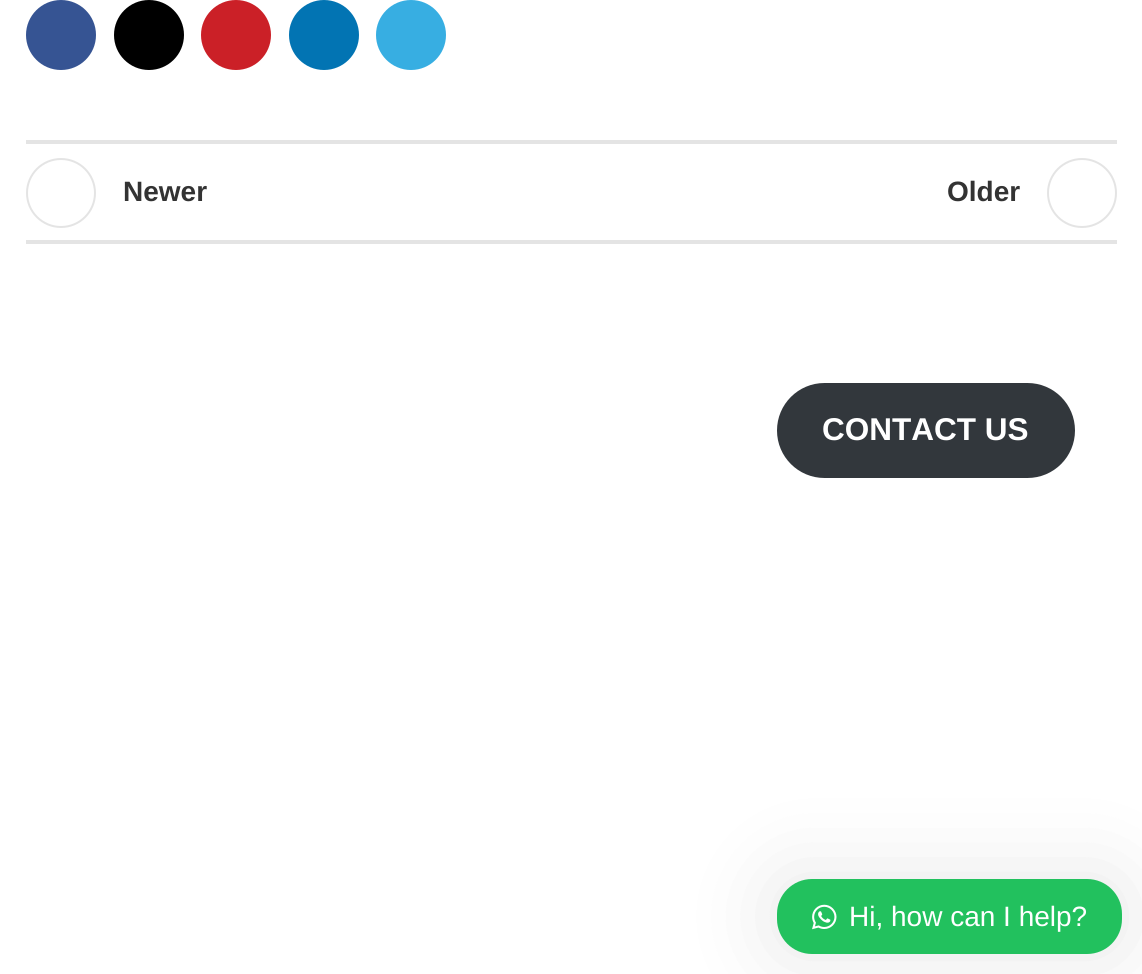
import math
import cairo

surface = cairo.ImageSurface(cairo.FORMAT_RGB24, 1142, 974)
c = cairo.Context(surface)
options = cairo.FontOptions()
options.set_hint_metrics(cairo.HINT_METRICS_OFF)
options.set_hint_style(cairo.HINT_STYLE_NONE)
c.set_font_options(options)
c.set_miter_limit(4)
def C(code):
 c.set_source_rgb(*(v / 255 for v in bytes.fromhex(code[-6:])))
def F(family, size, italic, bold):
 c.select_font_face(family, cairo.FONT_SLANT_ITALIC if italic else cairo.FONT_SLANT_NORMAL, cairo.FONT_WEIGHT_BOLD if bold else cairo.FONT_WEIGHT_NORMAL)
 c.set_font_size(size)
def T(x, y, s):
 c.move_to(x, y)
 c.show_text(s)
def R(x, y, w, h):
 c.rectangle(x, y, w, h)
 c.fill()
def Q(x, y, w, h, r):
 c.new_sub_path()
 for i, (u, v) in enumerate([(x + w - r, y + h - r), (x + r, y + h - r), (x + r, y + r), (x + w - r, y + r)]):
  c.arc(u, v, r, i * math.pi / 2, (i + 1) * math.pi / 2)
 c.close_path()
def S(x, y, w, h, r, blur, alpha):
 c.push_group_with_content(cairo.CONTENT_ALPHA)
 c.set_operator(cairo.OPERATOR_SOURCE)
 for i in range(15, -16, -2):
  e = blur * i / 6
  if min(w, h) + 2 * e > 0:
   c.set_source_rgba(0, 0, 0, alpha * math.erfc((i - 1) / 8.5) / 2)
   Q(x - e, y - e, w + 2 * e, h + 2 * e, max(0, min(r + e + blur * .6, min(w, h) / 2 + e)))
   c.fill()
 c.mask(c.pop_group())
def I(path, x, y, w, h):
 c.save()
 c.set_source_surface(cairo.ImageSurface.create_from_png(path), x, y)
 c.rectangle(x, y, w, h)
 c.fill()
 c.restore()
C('ffffff')
c.paint()
C('365493')
c.arc(61,35,35,0,2 * math.pi)
c.fill()
C('000000')
c.arc(149,35,35,0,2 * math.pi)
c.fill()
C('cb2027')
c.arc(236,35,35,0,2 * math.pi)
c.fill()
C('0274b3')
c.arc(324,35,35,0,2 * math.pi)
c.fill()
C('37aee2')
c.arc(411,35,35,0,2 * math.pi)
c.fill()
C('e4e4e4')
R(26,140,1091,4)
R(26,240,1091,4)
c.arc(61,193,34,0,2 * math.pi)
c.stroke()
F('Liberation Sans',28,0,1)
C('333333')
T(123,201,'Newer')
T(947,201,'Older')
c.new_path()
c.arc(1082,193,34,0,2 * math.pi)
C('e4e4e4')
c.stroke()
C('32373c')
Q(777,383,298,95,47.5)
c.fill()
F('Liberation Sans',31.5,0,1)
C('ffffff')
T(822,440,'CONTACT US')
C('000000')
S(777,879,345,75,35,44,.1)
C('22c15e')
Q(777,879,345,75,35)
c.fill()
I('1.png',812,904,25,26)
F('Liberation Sans',28,0,0)
C('ffffff')
T(849,926,'Hi, how can I help?')
surface.write_to_png('o.png')
